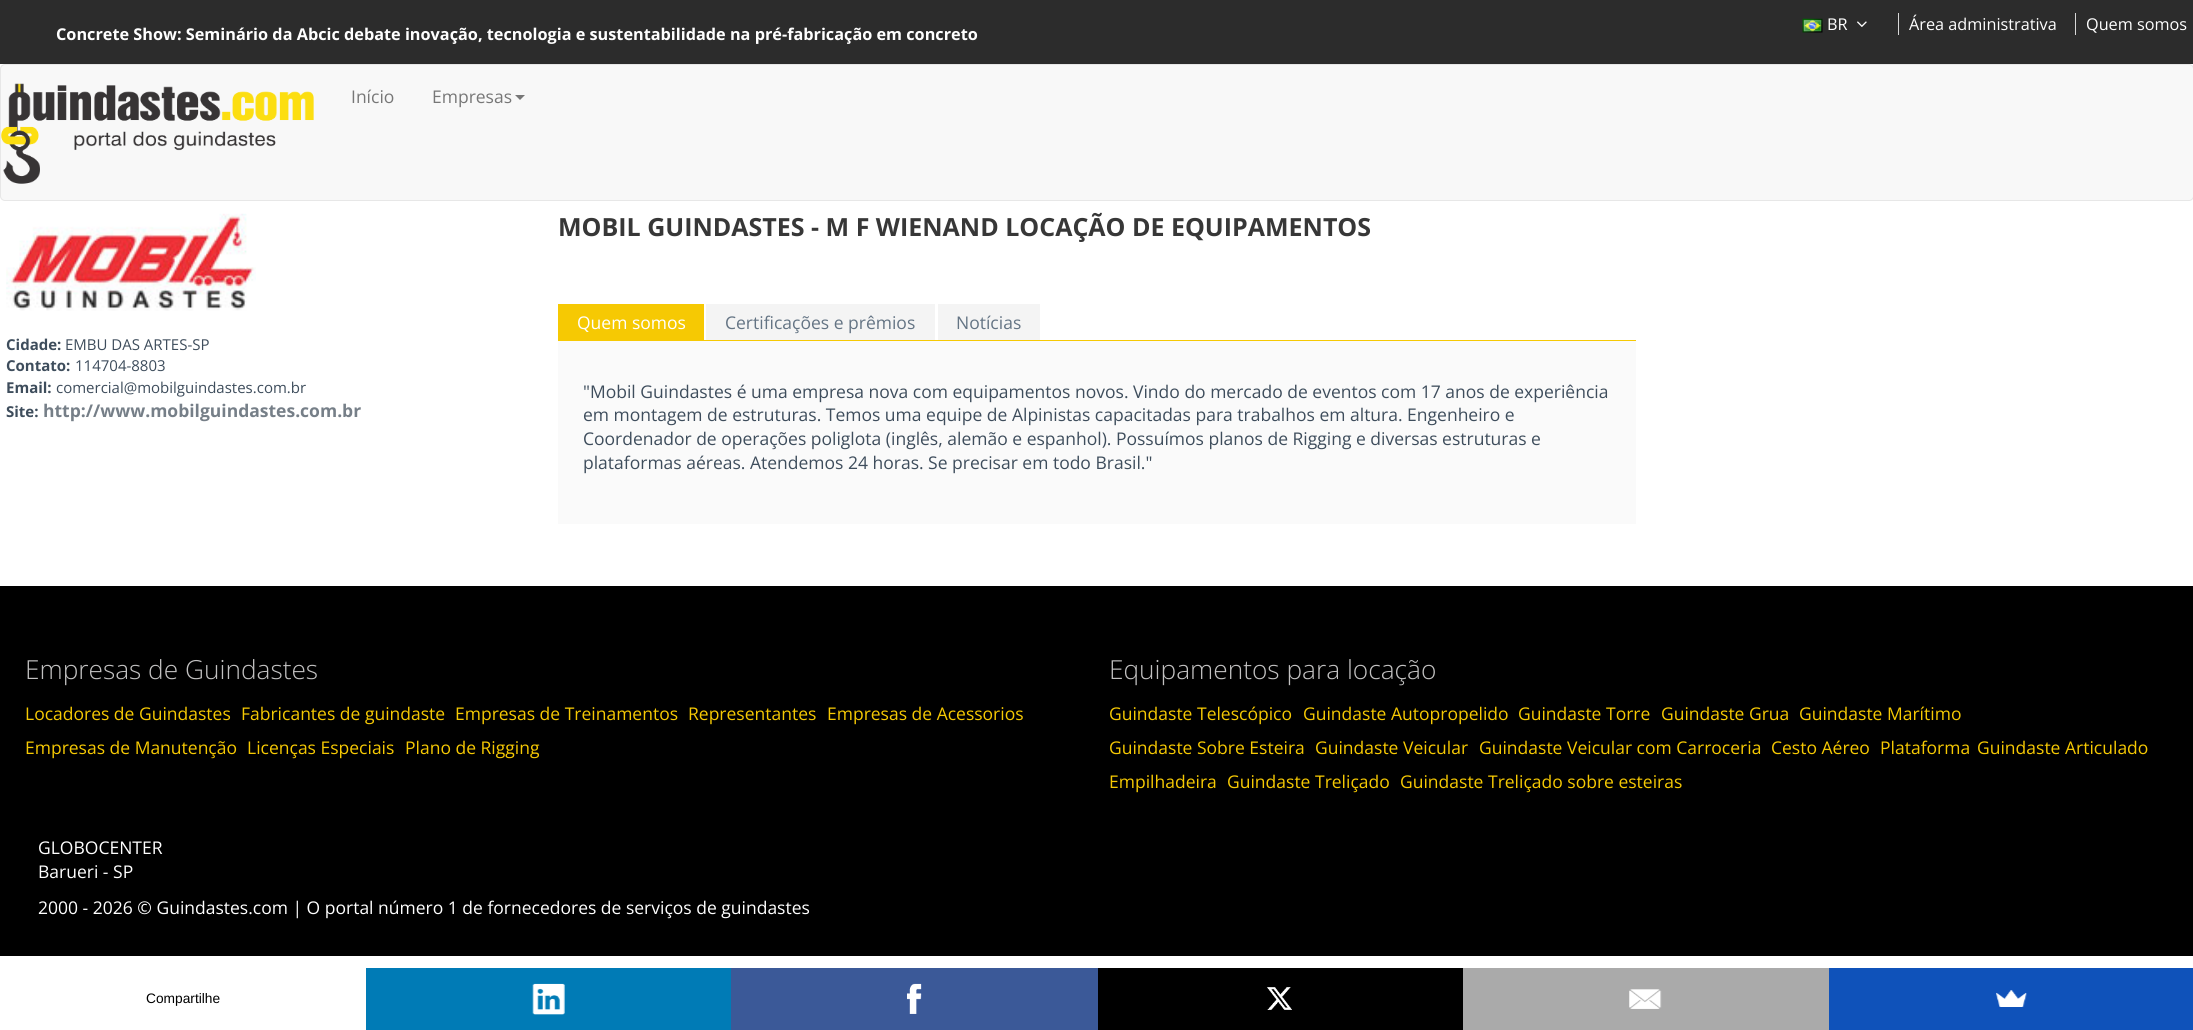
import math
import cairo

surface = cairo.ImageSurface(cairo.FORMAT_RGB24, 2193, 1030)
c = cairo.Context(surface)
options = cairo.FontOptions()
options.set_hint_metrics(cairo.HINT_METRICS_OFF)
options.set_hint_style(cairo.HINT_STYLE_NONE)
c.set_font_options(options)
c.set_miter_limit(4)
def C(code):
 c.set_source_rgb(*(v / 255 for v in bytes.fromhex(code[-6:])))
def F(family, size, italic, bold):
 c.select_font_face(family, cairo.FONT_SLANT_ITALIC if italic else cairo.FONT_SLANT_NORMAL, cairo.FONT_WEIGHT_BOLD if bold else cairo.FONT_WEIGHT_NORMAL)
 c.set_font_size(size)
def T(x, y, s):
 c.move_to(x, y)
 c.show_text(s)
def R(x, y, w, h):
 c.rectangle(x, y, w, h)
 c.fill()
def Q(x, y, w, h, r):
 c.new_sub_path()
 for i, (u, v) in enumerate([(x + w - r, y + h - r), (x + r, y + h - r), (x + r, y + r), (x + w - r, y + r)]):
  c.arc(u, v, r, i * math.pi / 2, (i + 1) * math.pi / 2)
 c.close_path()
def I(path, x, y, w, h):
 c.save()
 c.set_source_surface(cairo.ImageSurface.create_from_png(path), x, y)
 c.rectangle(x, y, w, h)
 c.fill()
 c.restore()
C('ffffff')
c.paint()
C('2c2c2c')
R(0,0,2193,64)
C('d8d8d8')
R(1898,13,1,22)
I('1.png',1802,18,21,15)
F('Open Sans',16.25,0,0)
C('ffffff')
T(1827,30,'BR')
I('2.png',1857,21,10,6)
C('d8d8d8')
R(2075,13,1,22)
C('ffffff')
T(1909,30,'Área administrativa')
T(2086,30,'Quem somos')
F('Open Sans',16.25,0,1)
T(56,40,'Concrete Show: Seminário da Abcic debate inovação, tecnologia e sustentabilidade na pré-fabricação em concreto')
C('f8f8f8')
Q(.5,64.5,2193,136,4.5)
c.fill_preserve()
C('e7e7e7')
c.set_line_width(1)
c.stroke()
I('3.png',1,83,313,101)
F('Open Sans',17.5,0,0)
C('777777')
T(351,103,'Início')
T(432,103,'Empresas')
c.new_path()
c.move_to(515,95)
c.line_to(525,95)
c.line_to(520,100)
c.close_path()
c.fill()
I('4.png',6,213,250,98)
F('Open Sans',15,0,1)
C('3e4d5c')
T(6,350,'Cidade:')
F('Open Sans',15,0,0)
T(65,350,'EMBU DAS ARTES-SP')
F('Open Sans',15,0,1)
T(6,371,'Contato:')
F('Open Sans',15,0,0)
T(75,371,'114704-8803')
F('Open Sans',15,0,1)
T(6,393,'Email:')
F('Open Sans',15,0,0)
T(56,393,'comercial@mobilguindastes.com.br')
F('Open Sans',15,0,1)
T(6,417,'Site:')
F('Open Sans',17.5,0,1)
C('767f88')
T(43,417,'http://www.mobilguindastes.com.br')
F('Open Sans',25,0,1)
C('373737')
T(558,236,'MOBIL GUINDASTES - M F WIENAND LOCAÇÃO DE EQUIPAMENTOS')
C('f6c903')
R(558,340,1078,1)
R(558,304,146,36)
F('Open Sans',17.5,0,0)
C('ffffff')
T(577,329,'Quem somos')
C('f4f4f4')
R(706,304,229,36)
C('647484')
T(725,329,'Certificações e prêmios')
C('f4f4f4')
R(938,304,102,36)
C('647484')
T(956,329,'Notícias')
C('fafafa')
R(558,341,1078,183)
C('3e4d5c')
T(583,398,'"Mobil Guindastes é uma empresa nova com equipamentos novos. Vindo do mercado de eventos com 17 anos de experiência')
T(583,421,'em montagem de estruturas. Temos uma equipe de Alpinistas capacitadas para trabalhos em altura. Engenheiro e')
T(583,445,'Coordenador de operações poliglota (inglês, alemão e espanhol). Possuímos planos de Rigging e diversas estruturas e')
T(583,469,'plataformas aéreas. Atendemos 24 horas. Se precisar em todo Brasil."')
C('000000')
R(0,586,2193,370)
F('Open Sans Light',26.25,0,0)
C('c2c1c1')
T(25,679,'Empresas de Guindastes')
F('Open Sans',17.5,0,0)
C('f6c903')
T(25,720,'Locadores de Guindastes')
T(241,720,'Fabricantes de guindaste')
T(455,720,'Empresas de Treinamentos')
T(688,720,'Representantes')
T(827,720,'Empresas de Acessorios')
T(25,754,'Empresas de Manutenção')
T(247,754,'Licenças Especiais')
T(405,754,'Plano de Rigging')
F('Open Sans Light',26.25,0,0)
C('c2c1c1')
T(1109,679,'Equipamentos para locação')
F('Open Sans',17.5,0,0)
C('f6c903')
T(1109,720,'Guindaste Telescópico')
T(1303,720,'Guindaste Autopropelido')
T(1518,720,'Guindaste Torre')
T(1661,720,'Guindaste Grua')
T(1799,720,'Guindaste Marítimo')
T(1109,754,'Guindaste Sobre Esteira')
T(1315,754,'Guindaste Veicular')
T(1479,754,'Guindaste Veicular com Carroceria')
T(1771,754,'Cesto Aéreo')
T(1880,754,'Plataforma')
T(1977,754,'Guindaste Articulado')
T(1109,788,'Empilhadeira')
T(1227,788,'Guindaste Treliçado')
T(1400,788,'Guindaste Treliçado sobre esteiras')
C('ffffff')
T(38,854,'GLOBOCENTER')
T(38,878,'Barueri - SP')
T(38,914,'2000 - 2026 © Guindastes.com | O portal número 1 de fornecedores de serviços de guindastes')
F('Liberation Sans',13.75,0,0)
C('000000')
T(146,1003,'Compartilhe')
C('007bb6')
R(366,968,365,62)
I('5.png',532,983,33,32)
C('3b5998')
R(731,968,367,62)
I('6.png',907,983,15,31)
C('000000')
R(1098,968,365,62)
I('7.png',1267,987,25,23)
C('aaaaaa')
R(1463,968,366,62)
I('8.png',1629,989,33,20)
C('0f52ba')
R(1829,968,364,62)
I('9.png',1996,990,31,17)
surface.write_to_png('o.png')
